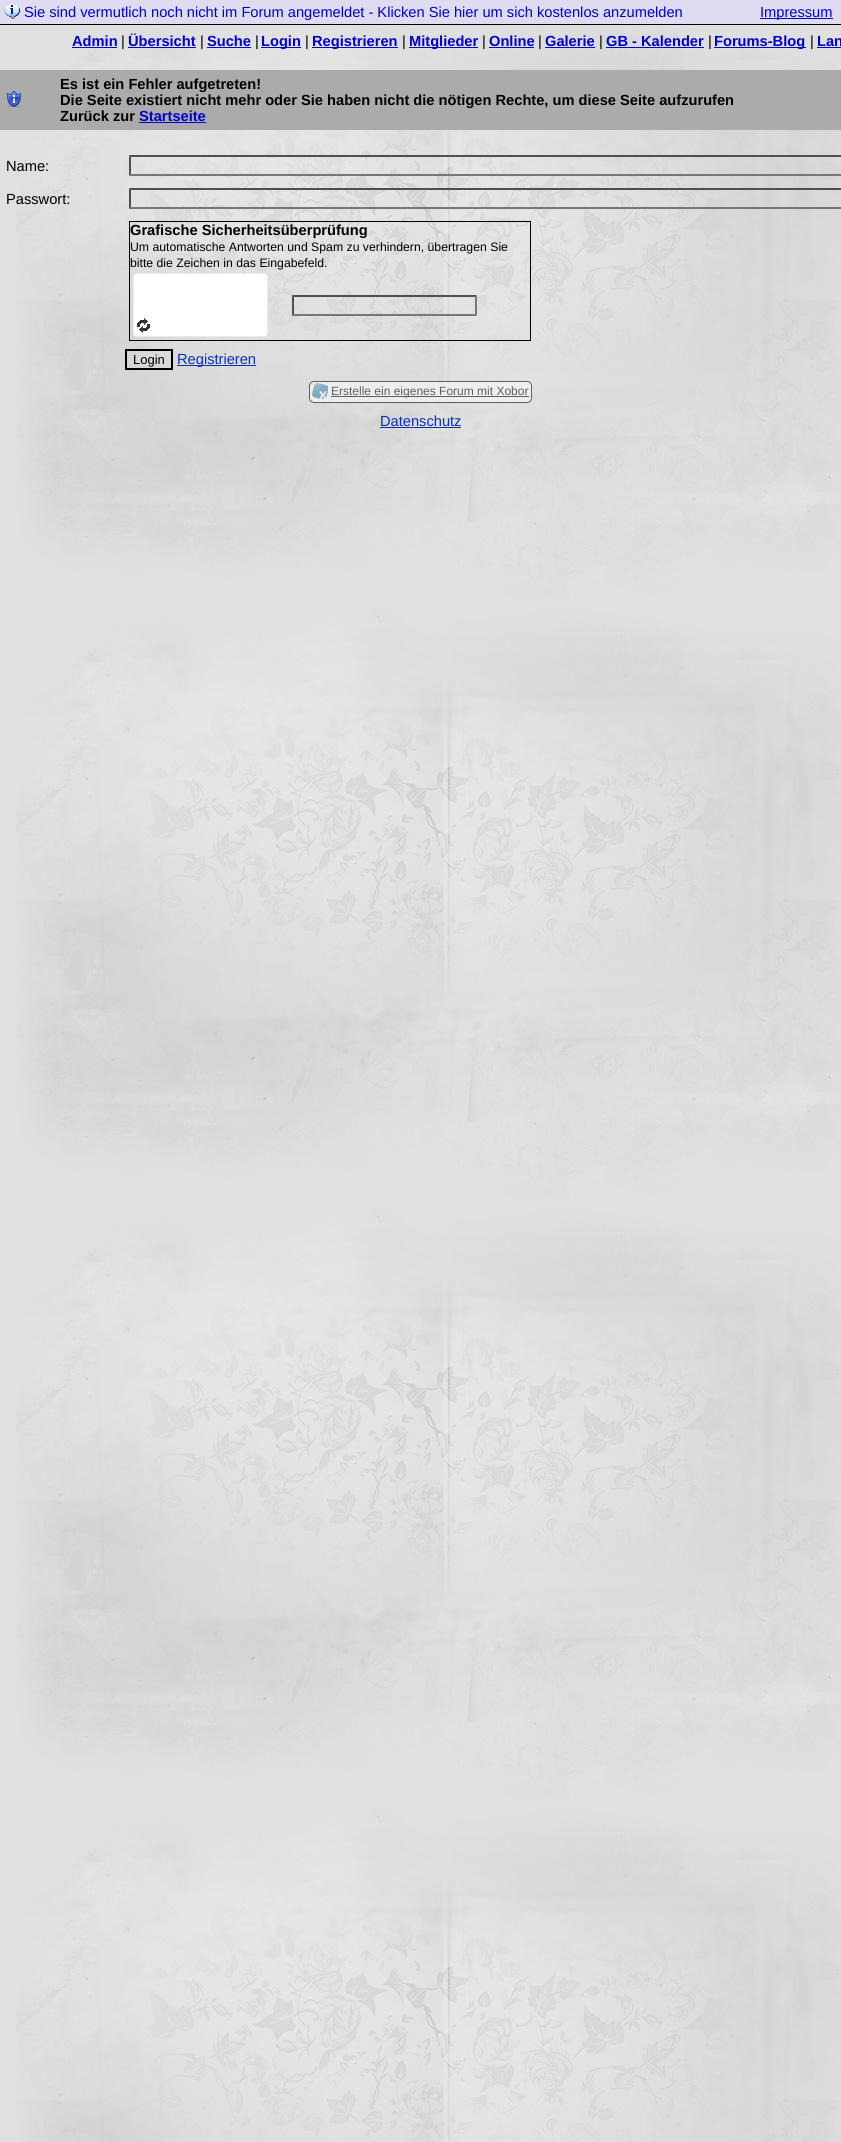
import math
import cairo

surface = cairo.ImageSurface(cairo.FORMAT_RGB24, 841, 2142)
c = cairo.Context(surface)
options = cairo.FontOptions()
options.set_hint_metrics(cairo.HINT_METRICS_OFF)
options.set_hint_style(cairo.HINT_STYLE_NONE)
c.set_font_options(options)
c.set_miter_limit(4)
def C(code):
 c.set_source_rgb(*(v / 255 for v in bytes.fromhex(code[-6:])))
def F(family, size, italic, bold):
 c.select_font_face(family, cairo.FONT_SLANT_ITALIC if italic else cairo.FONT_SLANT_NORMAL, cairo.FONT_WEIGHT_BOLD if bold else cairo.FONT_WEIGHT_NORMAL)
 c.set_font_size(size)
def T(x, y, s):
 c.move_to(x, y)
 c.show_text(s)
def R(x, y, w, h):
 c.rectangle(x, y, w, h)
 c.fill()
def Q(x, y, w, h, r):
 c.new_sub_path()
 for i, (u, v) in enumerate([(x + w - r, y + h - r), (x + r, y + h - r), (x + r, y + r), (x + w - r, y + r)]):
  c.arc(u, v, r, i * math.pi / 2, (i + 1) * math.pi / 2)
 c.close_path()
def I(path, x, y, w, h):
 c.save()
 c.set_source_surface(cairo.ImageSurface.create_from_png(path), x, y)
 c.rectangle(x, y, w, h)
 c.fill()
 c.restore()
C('e0e0e0')
c.paint()
I('1.png',16,25,825,2117)
C('dfdcf2')
R(0,0,841,24)
C('000000')
R(0,24,841,1)
I('2.png',4,4,16,15)
F('Liberation Sans',14.65,0,0)
C('0000cc')
T(24,17,'Sie sind vermutlich noch nicht im Forum angemeldet - Klicken Sie hier um sich kostenlos anzumelden')
R(760,18,73,1)
T(760,17,'Impressum')
F('Liberation Sans',14.65,0,1)
T(72,46,'Admin')
R(72,47,45,1)
F('Liberation Sans',14.65,0,0)
C('000000')
T(121,46,'|')
C('0000cc')
R(128,47,68,1)
F('Liberation Sans',14.65,0,1)
T(128,46,'Übersicht')
F('Liberation Sans',14.65,0,0)
C('000000')
T(200,46,'|')
F('Liberation Sans',14.65,0,1)
C('0000cc')
T(207,46,'Suche')
R(207,47,44,1)
F('Liberation Sans',14.65,0,0)
C('000000')
T(255,46,'|')
C('0000cc')
R(261,47,40,1)
F('Liberation Sans',14.65,0,1)
T(261,46,'Login')
F('Liberation Sans',14.65,0,0)
C('000000')
T(305,46,'|')
C('0000cc')
R(312,47,86,1)
F('Liberation Sans',14.65,0,1)
T(312,46,'Registrieren')
F('Liberation Sans',14.65,0,0)
C('000000')
T(402,46,'|')
C('0000cc')
R(409,47,69,1)
F('Liberation Sans',14.65,0,1)
T(409,46,'Mitglieder')
F('Liberation Sans',14.65,0,0)
C('000000')
T(482,46,'|')
F('Liberation Sans',14.65,0,1)
C('0000cc')
T(489,46,'Online')
R(489,47,45,1)
F('Liberation Sans',14.65,0,0)
C('000000')
T(538,46,'|')
F('Liberation Sans',14.65,0,1)
C('0000cc')
T(545,46,'Galerie')
R(545,47,50,1)
F('Liberation Sans',14.65,0,0)
C('000000')
T(599,46,'|')
F('Liberation Sans',14.65,0,1)
C('0000cc')
T(606,46,'GB - Kalender')
R(606,47,98,1)
F('Liberation Sans',14.65,0,0)
C('000000')
T(708,46,'|')
C('0000cc')
R(714,47,92,1)
F('Liberation Sans',14.65,0,1)
T(714,46,'Forums-Blog')
F('Liberation Sans',14.65,0,0)
C('000000')
T(810,46,'|')
F('Liberation Sans',14.65,0,1)
C('0000cc')
T(817,46,'Lan')
R(817,47,24,1)
C('ababab')
R(0,70,841,60)
I('3.png',7,91,14,16)
C('000000')
T(60,89,'Es ist ein Fehler aufgetreten!')
T(60,105,'Die Seite existiert nicht mehr oder Sie haben nicht die nötigen Rechte, um diese Seite aufzurufen')
T(60,121,'Zurück zur')
C('0000cc')
T(139,121,'Startseite')
R(139,122,67,1)
F('Liberation Sans',14.65,0,0)
C('000000')
T(6,171,'Name:')
C('4f4f4f')
c.new_path()
c.move_to(129,155)
c.line_to(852,155)
c.line_to(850,157)
c.line_to(131,157)
c.close_path()
c.fill()
C('767676')
c.new_path()
c.move_to(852,176)
c.line_to(129,176)
c.line_to(131,174)
c.line_to(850,174)
c.close_path()
c.fill()
C('4f4f4f')
c.new_path()
c.move_to(129,176)
c.line_to(129,155)
c.line_to(131,157)
c.line_to(131,174)
c.close_path()
c.fill()
C('000000')
T(6,204,'Passwort:')
C('4f4f4f')
c.new_path()
c.move_to(129,188)
c.line_to(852,188)
c.line_to(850,190)
c.line_to(131,190)
c.close_path()
c.fill()
C('767676')
c.new_path()
c.move_to(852,209)
c.line_to(129,209)
c.line_to(131,207)
c.line_to(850,207)
c.close_path()
c.fill()
C('4f4f4f')
c.new_path()
c.move_to(129,209)
c.line_to(129,188)
c.line_to(131,190)
c.line_to(131,207)
c.close_path()
c.fill()
c.rectangle(129.5,221.5,401,119)
C('000000')
c.set_line_width(1)
c.stroke()
F('Liberation Sans',14.65,0,1)
T(130,235,'Grafische Sicherheitsüberprüfung')
F('Liberation Sans',12.25,0,0)
T(130,251,'Um automatische Antworten und Spam zu verhindern, übertragen Sie')
T(130,267,'bitte die Zeichen in das Eingabefeld.')
C('ffffff')
Q(133.5,273.5,134,63,3.5)
c.fill_preserve()
C('f0e8f0')
c.stroke()
I('4.png',137,318,13,15)
C('4f4f4f')
c.new_path()
c.move_to(292,295)
c.line_to(477,295)
c.line_to(475,297)
c.line_to(294,297)
c.close_path()
c.fill()
C('767676')
c.new_path()
c.move_to(477,295)
c.line_to(477,316)
c.line_to(475,314)
c.line_to(475,297)
c.close_path()
c.fill()
c.new_path()
c.move_to(477,316)
c.line_to(292,316)
c.line_to(294,314)
c.line_to(475,314)
c.close_path()
c.fill()
C('4f4f4f')
c.new_path()
c.move_to(292,316)
c.line_to(292,295)
c.line_to(294,297)
c.line_to(294,314)
c.close_path()
c.fill()
c.rectangle(126,350,46,19)
C('000000')
c.set_line_width(2)
c.stroke()
F('Liberation Sans',13,0,0)
T(133,364,'Login')
C('0730b0')
R(177,365,79,1)
F('Liberation Sans',14.65,0,0)
T(177,364,'Registrieren')
c.set_source_rgba(0.976,0.976,0.976,0.6)
Q(309,381,223,22,5)
c.fill()
Q(309.5,381.5,222,21,4.5)
c.set_source_rgba(0,0,0,0.6)
c.set_line_width(1)
c.stroke()
I('5.png',312,383,16,16)
R(331,396,198,1)
F('Liberation Sans',12,0,0)
C('5f5f5f')
T(331,395,'Erstelle ein eigenes Forum mit Xobor')
F('Liberation Sans',14.65,0,0)
C('0730b0')
T(380,426,'Datenschutz')
R(380,427,81,1)
surface.write_to_png('o.png')
